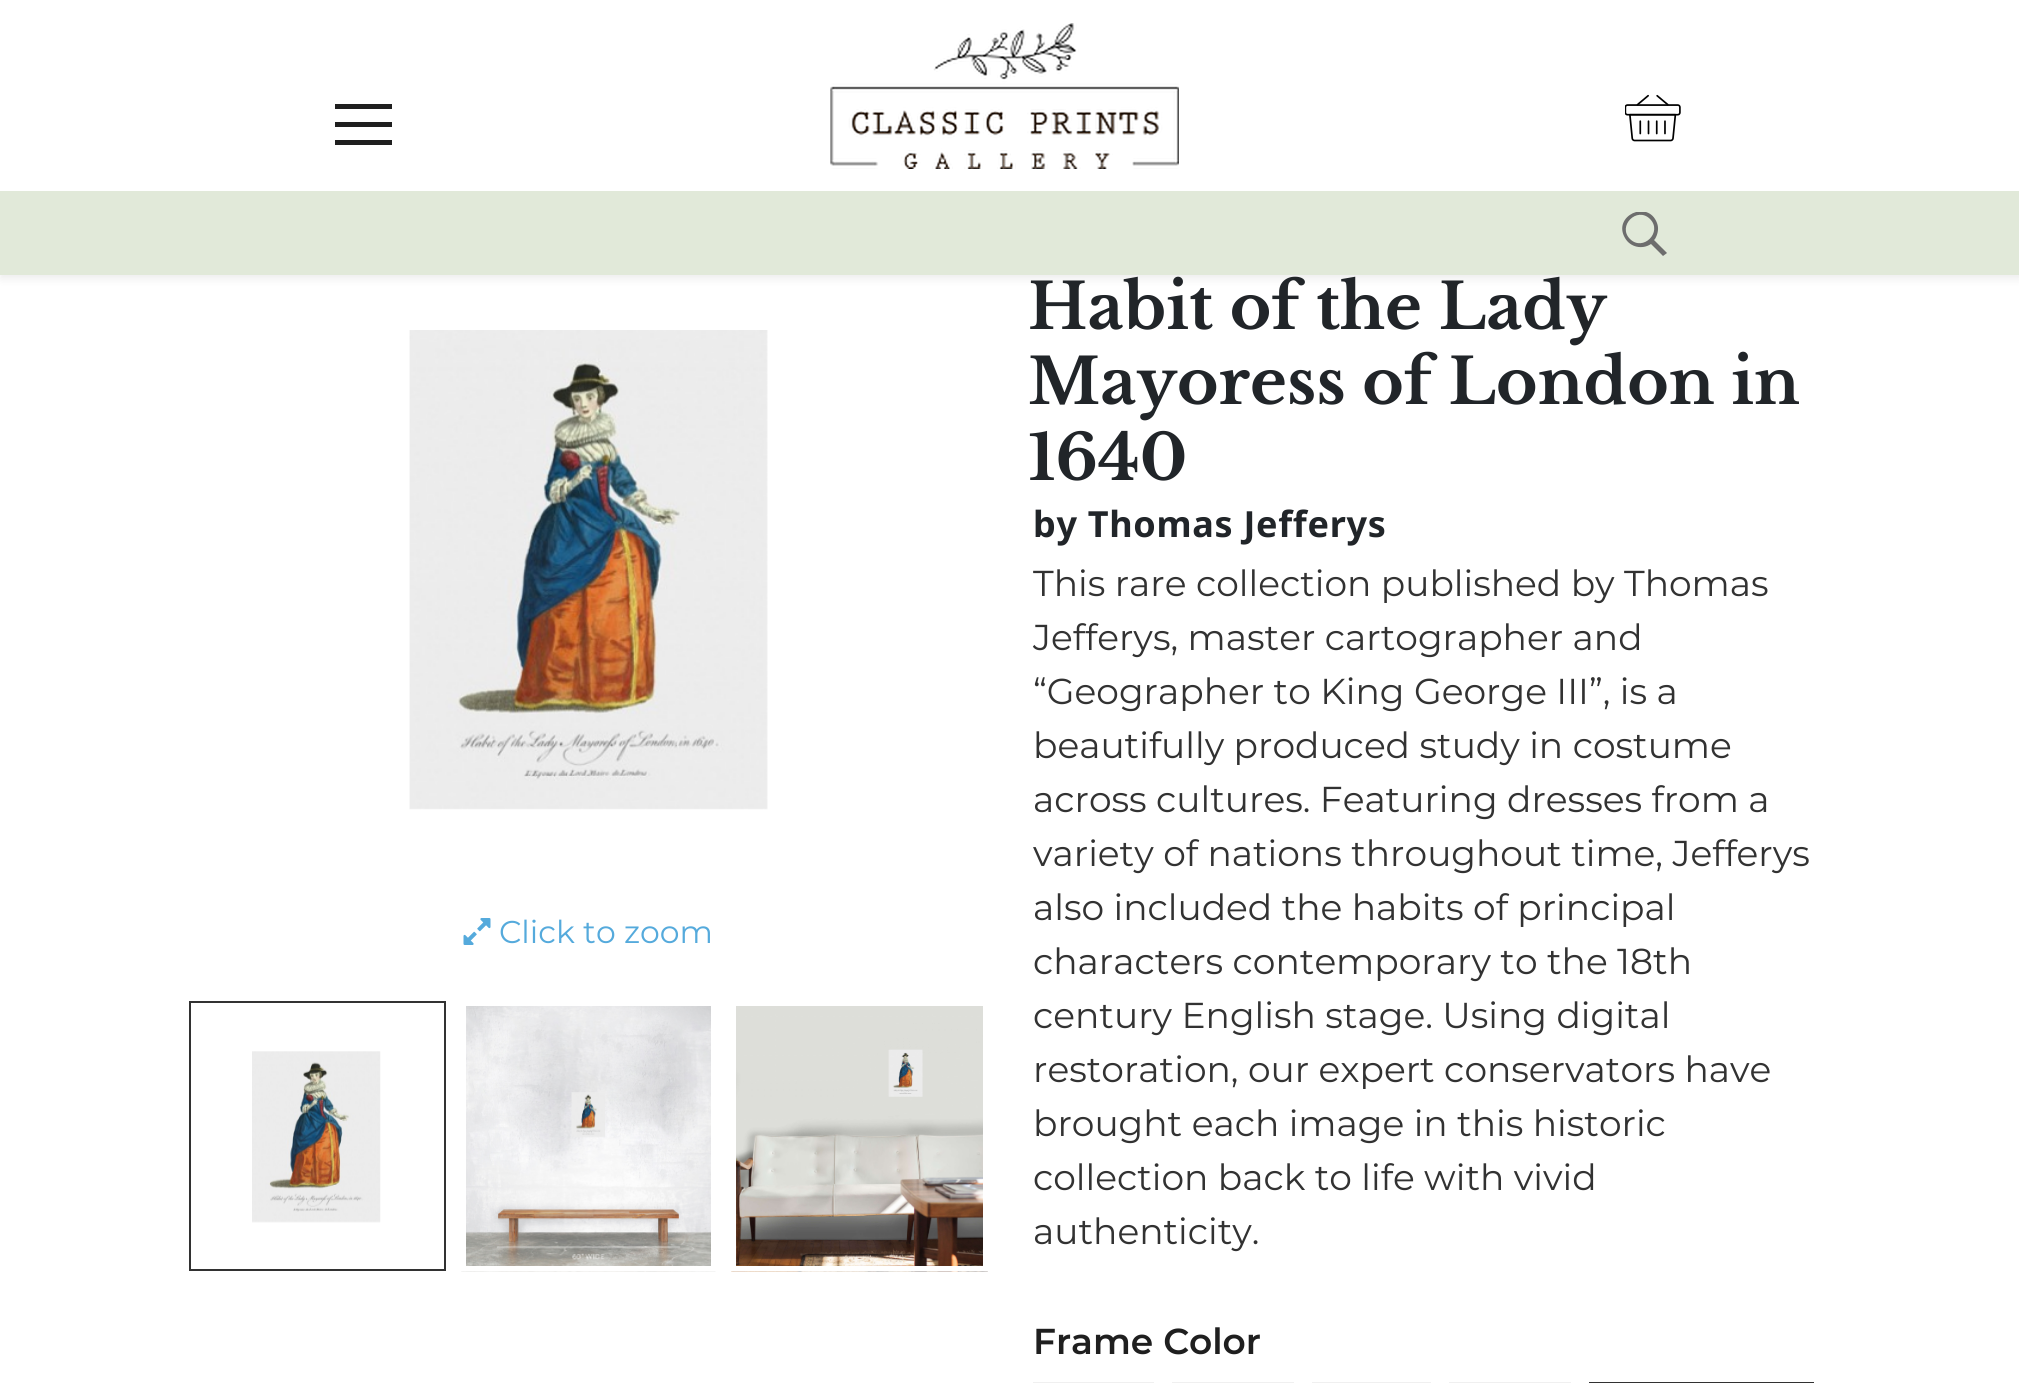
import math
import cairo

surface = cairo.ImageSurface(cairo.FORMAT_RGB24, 2019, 1383)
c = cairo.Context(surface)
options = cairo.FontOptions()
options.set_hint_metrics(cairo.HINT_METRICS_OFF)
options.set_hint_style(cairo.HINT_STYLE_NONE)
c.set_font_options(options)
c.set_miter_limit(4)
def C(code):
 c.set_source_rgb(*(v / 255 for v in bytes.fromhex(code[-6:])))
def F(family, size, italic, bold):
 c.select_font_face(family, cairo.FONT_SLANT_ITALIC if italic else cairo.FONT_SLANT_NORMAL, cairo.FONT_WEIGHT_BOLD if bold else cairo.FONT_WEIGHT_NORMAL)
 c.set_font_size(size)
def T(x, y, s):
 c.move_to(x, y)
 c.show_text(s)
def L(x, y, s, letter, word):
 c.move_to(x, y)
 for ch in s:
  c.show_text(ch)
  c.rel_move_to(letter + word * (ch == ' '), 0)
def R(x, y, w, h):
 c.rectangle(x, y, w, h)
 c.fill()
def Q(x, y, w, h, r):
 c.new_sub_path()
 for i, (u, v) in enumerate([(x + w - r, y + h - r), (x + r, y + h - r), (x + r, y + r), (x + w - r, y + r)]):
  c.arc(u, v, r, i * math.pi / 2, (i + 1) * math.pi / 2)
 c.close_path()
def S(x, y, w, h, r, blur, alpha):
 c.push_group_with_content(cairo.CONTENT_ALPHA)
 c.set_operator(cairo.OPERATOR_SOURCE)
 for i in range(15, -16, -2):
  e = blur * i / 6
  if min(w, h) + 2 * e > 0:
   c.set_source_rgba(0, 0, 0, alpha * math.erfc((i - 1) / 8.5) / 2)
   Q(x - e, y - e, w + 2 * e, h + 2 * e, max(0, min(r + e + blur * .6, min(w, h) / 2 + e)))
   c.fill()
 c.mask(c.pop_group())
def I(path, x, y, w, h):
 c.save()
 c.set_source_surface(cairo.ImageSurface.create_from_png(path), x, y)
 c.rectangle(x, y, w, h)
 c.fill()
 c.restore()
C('ffffff')
c.paint()
C('000000')
S(0,5,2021,274,0,4.5,.07)
C('ffffff')
R(0,0,2019,191)
C('1f1f1f')
R(335,104,57,5)
R(335,122,57,5)
R(335,140,57,5)
I('1.png',830,23,349,146)
I('2.png',1625,94,56,48)
C('e1e9d9')
R(0,191,2019,84)
c.save()
c.rectangle(1622,212,45,45)
c.clip()
C('6d6d6d')
c.new_path()
c.move_to(1655,239)
c.line_to(1654,240)
c.line_to(1667,253)
c.line_to(1663,256)
c.line_to(1651,244)
c.curve_to(1642,250,1630,247,1625,238)
c.curve_to(1612,216,1648,199,1657,223)
c.curve_to(1659,228,1658,234,1655,239)
c.close_path()
c.move_to(1650,219)
c.curve_to(1637,206,1617,226,1630,239)
c.curve_to(1643,252,1663,232,1650,219)
c.close_path()
c.fill()
c.restore()
I('3.png',409,330,359,480)
I('4.png',463,918,28,27)
F('Montserrat',31.5,0,0)
C('55aadc')
T(499,943,'Click to zoom')
c.rectangle(190,1002,255,268)
C('323232')
c.stroke()
I('5.png',252,1051,129,172)
I('6.png',461,1006,255,266)
c.rectangle(463.5,1003.5,250,265)
C('ffffff')
c.set_line_width(5)
c.stroke()
I('7.png',571,1092,34,46)
I('8.png',731,1006,257,266)
c.rectangle(733.5,1003.5,252,265)
c.stroke()
I('9.png',888,1049,35,48)
F('Libre Baskerville',63,0,1)
C('212529')
T(1028,329,'Habit of the Lady')
T(1028,404,'Mayoress of London in')
T(1028,480,'1640')
F('Noto Sans',36,0,1)
L(1033,537,'by Thomas Jefferys',.7,0)
F('Montserrat',36,0,0)
C('323232')
T(1033,596,'This rare collection published by Thomas')
T(1033,650,'Jefferys, master cartographer and')
T(1033,704,'“Geographer to King George III”, is a')
T(1033,758,'beautifully produced study in costume')
T(1033,812,'across cultures. Featuring dresses from a')
T(1033,866,'variety of nations throughout time, Jefferys')
T(1033,920,'also included the habits of principal')
T(1033,974,'characters contemporary to the 18th')
T(1033,1028,'century English stage. Using digital')
T(1033,1082,'restoration, our expert conservators have')
T(1033,1136,'brought each image in this historic')
T(1033,1190,'collection back to life with vivid')
T(1033,1244,'authenticity.')
F('Montserrat SemiBold',36,0,0)
C('1f1f1f')
T(1033,1354,'Frame Color')
C('f0f0f0')
R(1033,1382,121,1)
R(1172,1382,122,1)
R(1312,1382,119,1)
R(1449,1382,122,1)
c.rectangle(1590,1383,223,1)
C('323232')
c.set_line_width(2)
c.stroke()
surface.write_to_png('o.png')
